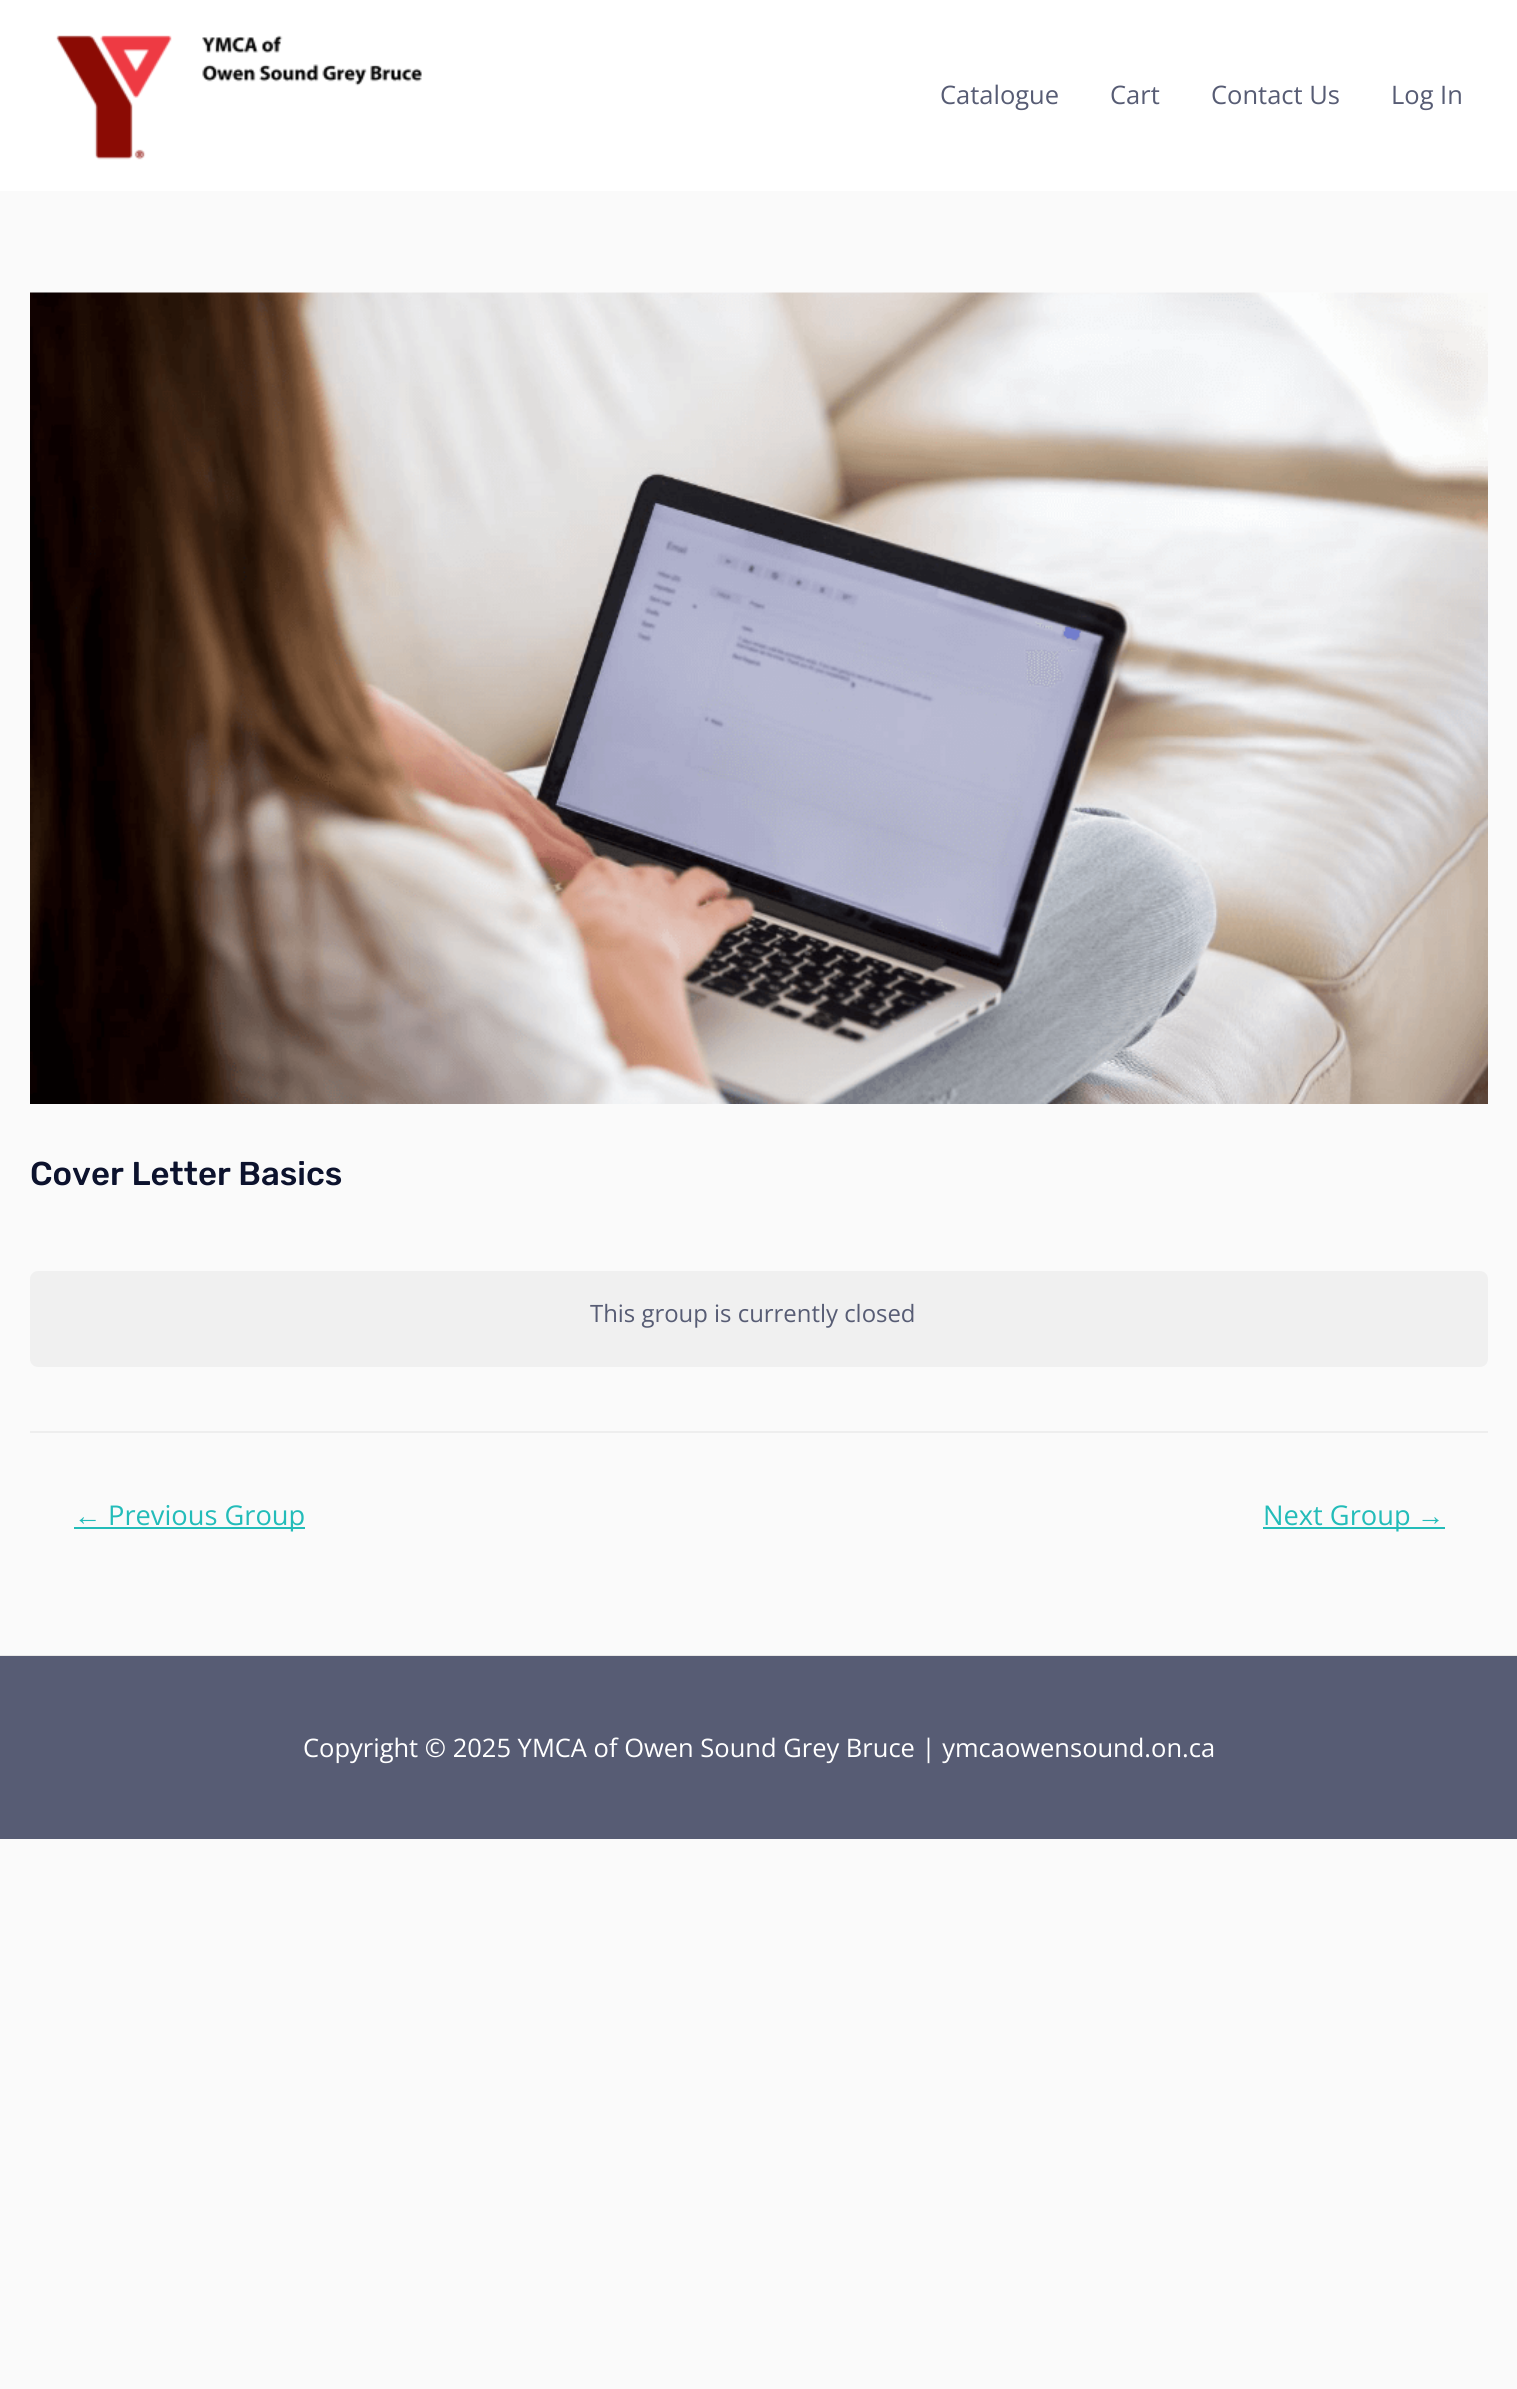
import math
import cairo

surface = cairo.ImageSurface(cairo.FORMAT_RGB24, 1517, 2389)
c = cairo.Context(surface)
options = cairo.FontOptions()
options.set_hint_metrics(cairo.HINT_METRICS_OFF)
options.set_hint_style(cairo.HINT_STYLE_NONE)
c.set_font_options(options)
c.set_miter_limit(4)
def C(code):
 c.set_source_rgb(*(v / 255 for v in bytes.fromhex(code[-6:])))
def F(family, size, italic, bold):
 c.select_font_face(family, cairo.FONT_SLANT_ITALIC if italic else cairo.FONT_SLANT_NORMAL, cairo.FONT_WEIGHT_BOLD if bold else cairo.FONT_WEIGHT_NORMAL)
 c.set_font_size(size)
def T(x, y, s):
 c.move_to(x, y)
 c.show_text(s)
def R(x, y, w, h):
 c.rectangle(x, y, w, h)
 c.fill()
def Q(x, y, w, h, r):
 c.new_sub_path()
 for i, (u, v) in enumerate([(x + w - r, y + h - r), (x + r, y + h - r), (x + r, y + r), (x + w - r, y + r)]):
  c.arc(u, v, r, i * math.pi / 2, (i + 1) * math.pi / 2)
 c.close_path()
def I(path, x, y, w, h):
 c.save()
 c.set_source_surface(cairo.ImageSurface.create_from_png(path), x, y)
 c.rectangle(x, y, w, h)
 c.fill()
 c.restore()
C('fafafa')
c.paint()
C('ffffff')
R(0,0,1517,191)
I('1.png',56,35,366,125)
F('Open Sans',25.5,0,0)
C('575c74')
T(940,104,'Catalogue')
T(1110,104,'Cart')
T(1211,104,'Contact Us')
T(1391,104,'Log In')
I('2.png',30,292,1458,812)
F('Rubik Light',33,0,0)
C('0c122d')
T(30,1185,'Cover Letter Basics')
C('f0f0f0')
Q(30,1271,1458,96,8)
c.fill()
F('Open Sans',23.9,0,0)
C('575c74')
T(590,1322,'This group is currently closed')
C('eeeeee')
R(30,1431,1458,2)
F('Liberation Sans',27.25,0,0)
C('23bcb9')
T(74,1525,'←')
R(74,1527,231,2)
F('Open Sans',27.25,0,0)
T(108,1525,'Previous Group')
R(1263,1527,182,2)
T(1263,1525,'Next Group')
F('Liberation Sans',27.25,0,0)
T(1417,1525,'→')
C('e8e8e8')
R(0,1655,1517,1)
C('575c74')
R(0,1656,1517,183)
F('Open Sans',25.5,0,0)
C('ffffff')
T(303,1757,'Copyright © 2025 YMCA of Owen Sound Grey Bruce | ymcaowensound.on.ca')
surface.write_to_png('o.png')
